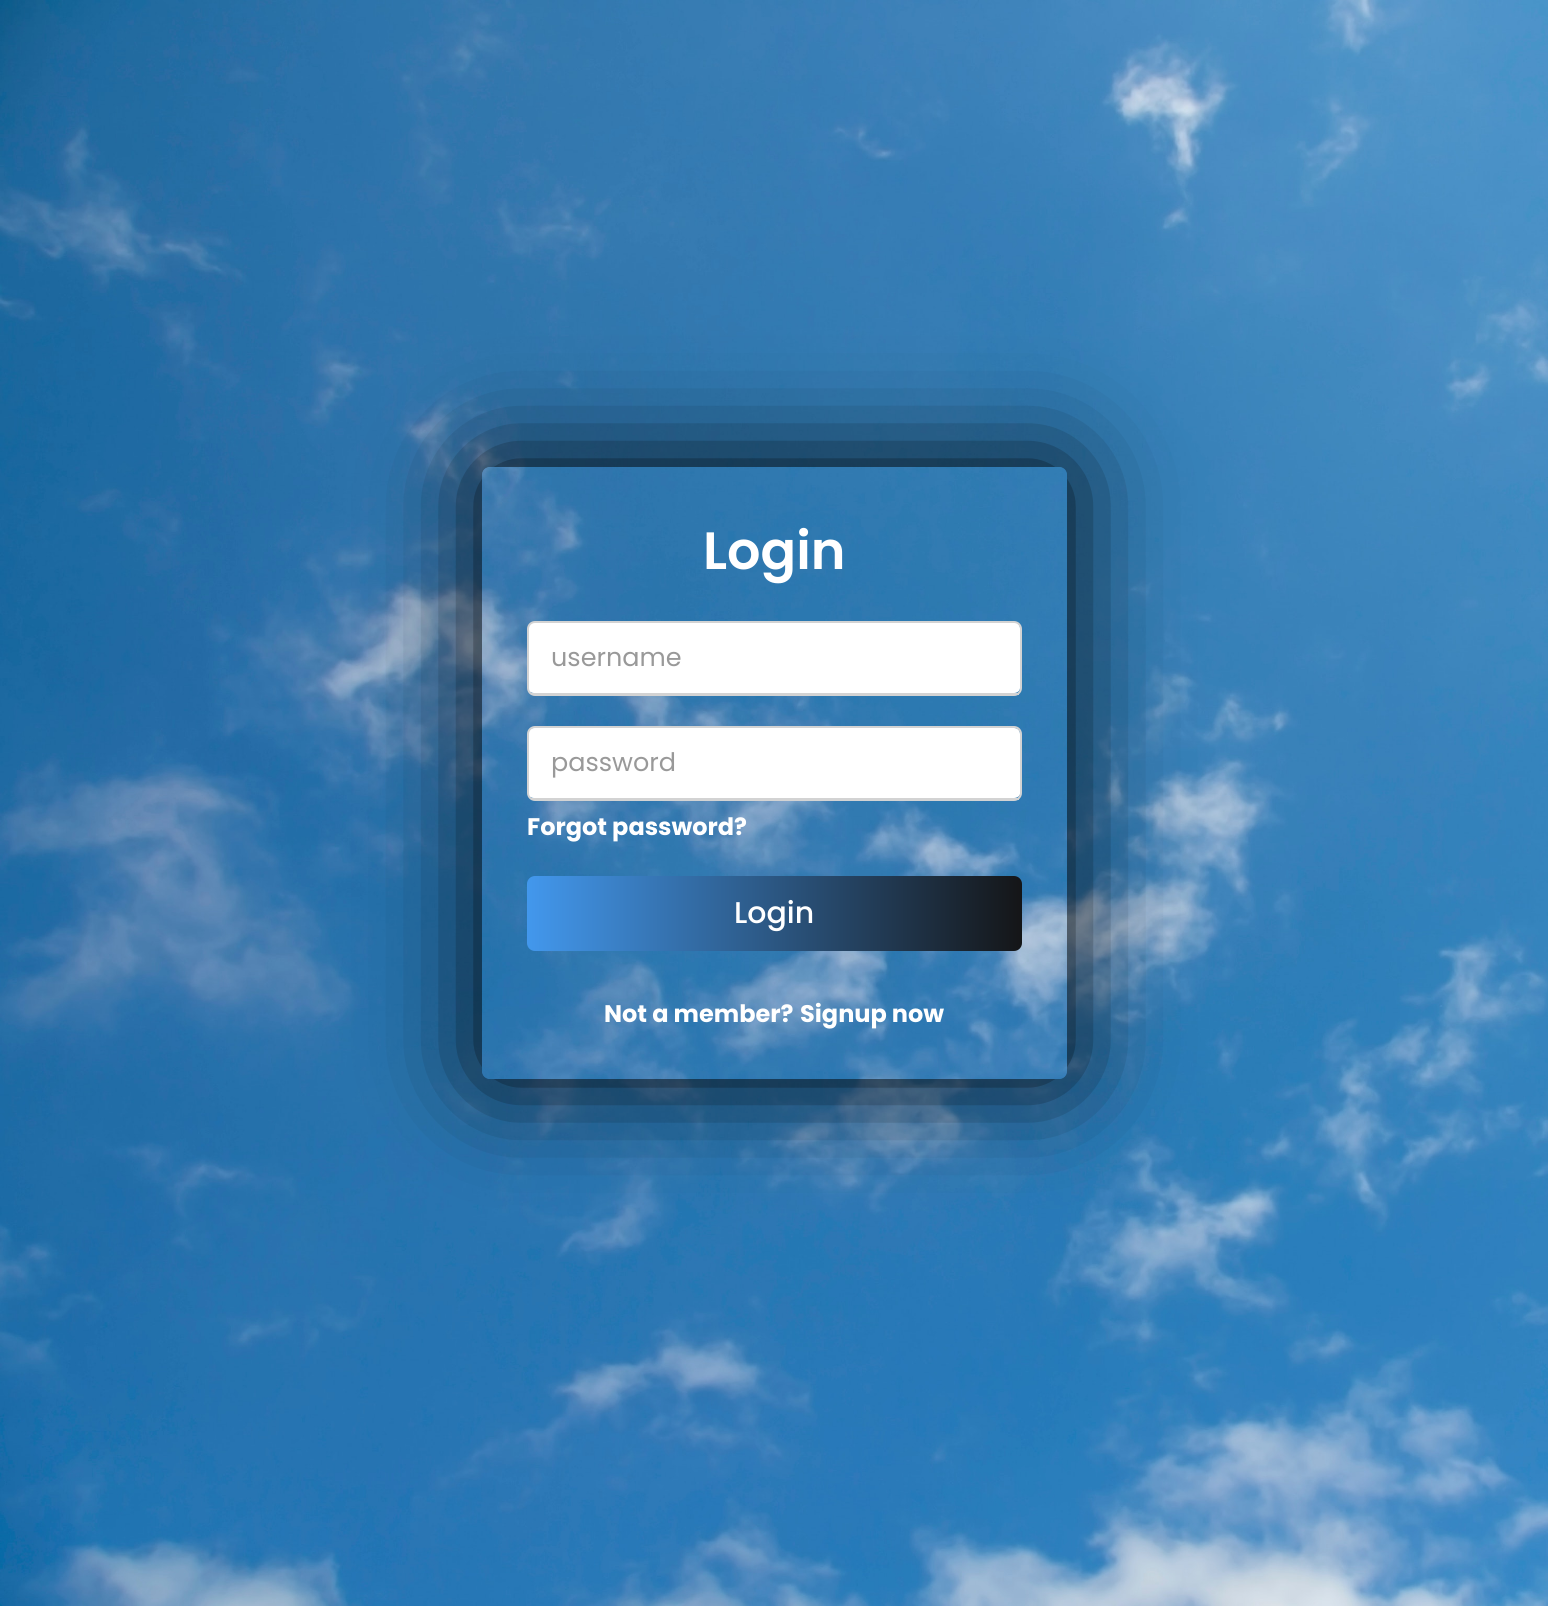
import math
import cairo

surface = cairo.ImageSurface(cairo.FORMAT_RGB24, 1548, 1606)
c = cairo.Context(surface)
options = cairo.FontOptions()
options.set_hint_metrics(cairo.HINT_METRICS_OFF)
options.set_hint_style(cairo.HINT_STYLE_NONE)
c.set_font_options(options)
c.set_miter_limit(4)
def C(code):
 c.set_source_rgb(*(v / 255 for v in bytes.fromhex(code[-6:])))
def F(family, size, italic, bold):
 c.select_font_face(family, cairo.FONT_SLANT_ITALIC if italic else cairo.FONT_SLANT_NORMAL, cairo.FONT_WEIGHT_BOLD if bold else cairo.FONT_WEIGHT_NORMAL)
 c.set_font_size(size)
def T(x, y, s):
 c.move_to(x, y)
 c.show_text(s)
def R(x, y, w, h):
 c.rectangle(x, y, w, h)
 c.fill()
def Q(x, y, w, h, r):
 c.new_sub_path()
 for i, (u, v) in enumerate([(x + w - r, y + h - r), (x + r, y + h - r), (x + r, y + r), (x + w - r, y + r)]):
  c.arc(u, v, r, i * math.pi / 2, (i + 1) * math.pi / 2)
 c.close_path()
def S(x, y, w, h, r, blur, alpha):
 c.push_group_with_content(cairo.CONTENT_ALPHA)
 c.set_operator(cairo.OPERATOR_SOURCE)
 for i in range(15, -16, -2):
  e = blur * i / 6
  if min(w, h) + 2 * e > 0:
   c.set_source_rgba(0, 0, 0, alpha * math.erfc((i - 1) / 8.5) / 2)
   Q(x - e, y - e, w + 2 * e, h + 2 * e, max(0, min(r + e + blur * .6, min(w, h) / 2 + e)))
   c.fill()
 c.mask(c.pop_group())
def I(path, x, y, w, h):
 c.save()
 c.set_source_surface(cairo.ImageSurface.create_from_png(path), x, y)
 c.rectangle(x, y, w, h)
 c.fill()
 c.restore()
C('ffffff')
c.paint()
I('1.png',0,0,1548,1606)
c.save()
c.set_fill_rule(cairo.FILL_RULE_EVEN_ODD)
c.new_path()
c.move_to(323,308)
c.line_to(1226,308)
c.line_to(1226,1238)
c.line_to(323,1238)
c.close_path()
c.move_to(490,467)
c.line_to(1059,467)
c.curve_to(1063.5,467,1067,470.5,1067,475)
c.line_to(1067,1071)
c.curve_to(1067,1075.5,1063.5,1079,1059,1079)
c.line_to(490,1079)
c.curve_to(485.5,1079,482,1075.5,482,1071)
c.line_to(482,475)
c.curve_to(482,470.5,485.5,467,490,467)
c.close_path()
c.clip()
C('000000')
S(482,467,585,612,8,52.5,1)
c.restore()
F('Poppins SemiBold',52.5,0,0)
C('ffffff')
T(703,569,'Login')
c.new_path()
c.move_to(534,622)
c.line_to(1014,622)
c.curve_to(1017,622,1020,625,1020,628)
c.line_to(1020,688)
c.curve_to(1020,691,1017,693,1014,693)
c.line_to(534,693)
c.curve_to(531,693,528,691,528,688)
c.line_to(528,628)
c.curve_to(528,625,531,622,534,622)
c.close_path()
c.fill()
Q(528,622,493,73,7)
C('d3d3d3')
c.stroke()
R(531,693,488,2)
F('Poppins',25.5,0,0)
C('999999')
T(551,666,'username')
C('ffffff')
c.new_path()
c.move_to(534,728)
c.line_to(1014,728)
c.curve_to(1017,728,1020,730,1020,734)
c.line_to(1020,794)
c.curve_to(1020,796,1017,798,1014,798)
c.line_to(534,798)
c.curve_to(531,798,528,796,528,794)
c.line_to(528,734)
c.curve_to(528,730,531,728,534,728)
c.close_path()
c.fill()
Q(528,727,493,73,7)
C('d3d3d3')
c.stroke()
R(531,798,488,2)
C('999999')
T(551,771,'password')
F('Poppins',24,0,1)
C('ffffff')
T(527,835,'Forgot password?')
gradient = cairo.LinearGradient(1517,914,32,914)
gradient.add_color_stop_rgba(0,0.58,0.592,0.604,1)
gradient.add_color_stop_rgba(.33,0.078,0.078,0.082,1)
gradient.add_color_stop_rgba(.67,0.263,0.6,0.937,1)
gradient.add_color_stop_rgba(1,0.075,0.443,0.725,1)
c.set_source(gradient)
Q(527,876,495,75,8)
c.fill()
F('Poppins Medium',30,0,0)
C('ffffff')
T(734,923,'Login')
F('Poppins',24,0,1)
T(604,1022,'Not a member?')
T(800,1022,'Signup now')
surface.write_to_png('o.png')
